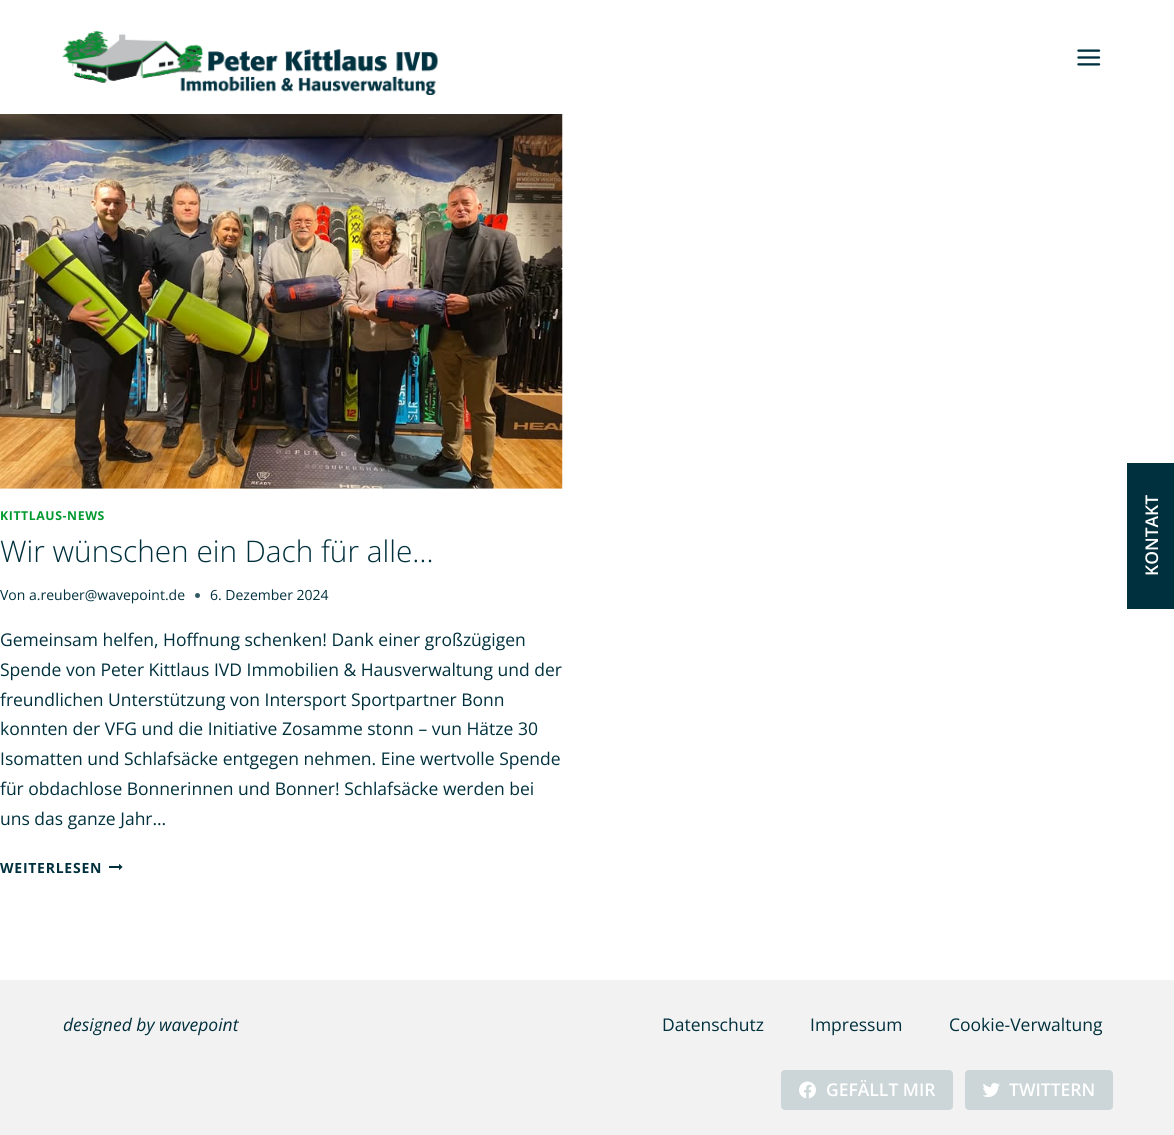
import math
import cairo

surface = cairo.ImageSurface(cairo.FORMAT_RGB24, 1174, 1135)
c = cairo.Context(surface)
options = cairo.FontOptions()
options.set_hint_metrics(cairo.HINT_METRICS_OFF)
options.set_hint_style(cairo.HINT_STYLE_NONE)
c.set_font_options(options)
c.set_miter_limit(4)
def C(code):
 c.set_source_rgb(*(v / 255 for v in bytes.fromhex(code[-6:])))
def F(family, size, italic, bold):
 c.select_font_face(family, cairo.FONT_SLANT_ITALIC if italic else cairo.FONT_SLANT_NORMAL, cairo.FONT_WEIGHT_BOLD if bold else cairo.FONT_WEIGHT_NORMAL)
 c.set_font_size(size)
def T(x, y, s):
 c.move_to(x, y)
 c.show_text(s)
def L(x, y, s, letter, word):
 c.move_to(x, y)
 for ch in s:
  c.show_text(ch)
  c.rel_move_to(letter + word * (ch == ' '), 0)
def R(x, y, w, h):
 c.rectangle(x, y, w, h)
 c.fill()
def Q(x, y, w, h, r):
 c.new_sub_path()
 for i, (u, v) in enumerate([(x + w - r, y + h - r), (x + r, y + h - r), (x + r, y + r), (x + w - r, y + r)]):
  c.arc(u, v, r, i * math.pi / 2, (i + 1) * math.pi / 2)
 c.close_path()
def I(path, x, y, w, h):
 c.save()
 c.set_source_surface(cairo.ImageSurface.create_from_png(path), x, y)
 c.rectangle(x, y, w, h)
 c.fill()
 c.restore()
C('ffffff')
c.paint()
I('1.png',62,31,376,64)
I('2.png',1077,49,24,17)
I('3.png',0,114,563,375)
F('Open Sans',12.25,0,1)
C('009a2f')
L(0,520,'KITTLAUS-NEWS',.6,0)
F('Open Sans Light',29.75,0,0)
C('00303d')
T(0,562,'Wir wünschen ein Dach für alle…')
F('Open Sans',14,0,0)
T(0,600,'Von')
T(29,600,'a.reuber@wavepoint.de')
C('335964')
c.new_path()
c.arc(197.5,595.5,2.5,0,2 * math.pi)
c.fill()
C('00303d')
T(210,600,'6. Dezember 2024')
F('Open Sans',17.5,0,0)
T(0,646,'Gemeinsam helfen, Hoffnung schenken! Dank einer großzügigen')
T(0,676,'Spende von Peter Kittlaus IVD Immobilien & Hausverwaltung und der')
T(0,706,'freundlichen Unterstützung von Intersport Sportpartner Bonn')
T(0,735,'konnten der VFG und die Initiative Zosamme stonn – vun Hätze 30')
T(0,765,'Isomatten und Schlafsäcke entgegen nehmen. Eine wertvolle Spende')
T(0,795,'für obdachlose Bonnerinnen und Bonner! Schlafsäcke werden bei')
T(0,825,'uns das ganze Jahr…')
F('Open Sans',14,0,1)
L(0,873,'WEITERLESEN',.75,0)
I('4.png',109,864,14,6)
R(1127,463,47,146)
F('Open Sans SemiBold',17.5,0,0)
C('ffffff')
c.save()
c.translate(1158,576)
c.rotate(-90 * math.pi / 180)
T(0,0,'KONTAKT')
c.restore()
C('f2f2f2')
R(0,980,1174,155)
F('Open Sans',17.5,1,0)
C('00303d')
T(63,1031,'designed by wavepoint')
F('Open Sans',17.5,0,0)
T(662,1031,'Datenschutz')
T(810,1031,'Impressum')
T(949,1031,'Cookie-Verwaltung')
C('ccd6d8')
Q(781,1070,172,40,4)
c.fill()
I('5.png',799,1081,17,18)
F('Open Sans SemiBold',17.5,0,0)
C('ffffff')
T(826,1096,'GEFÄLLT MIR')
C('ccd6d8')
Q(965,1070,148,40,4)
c.fill()
I('6.png',983,1083,17,14)
C('ffffff')
T(1009,1096,'TWITTERN')
surface.write_to_png('o.png')
